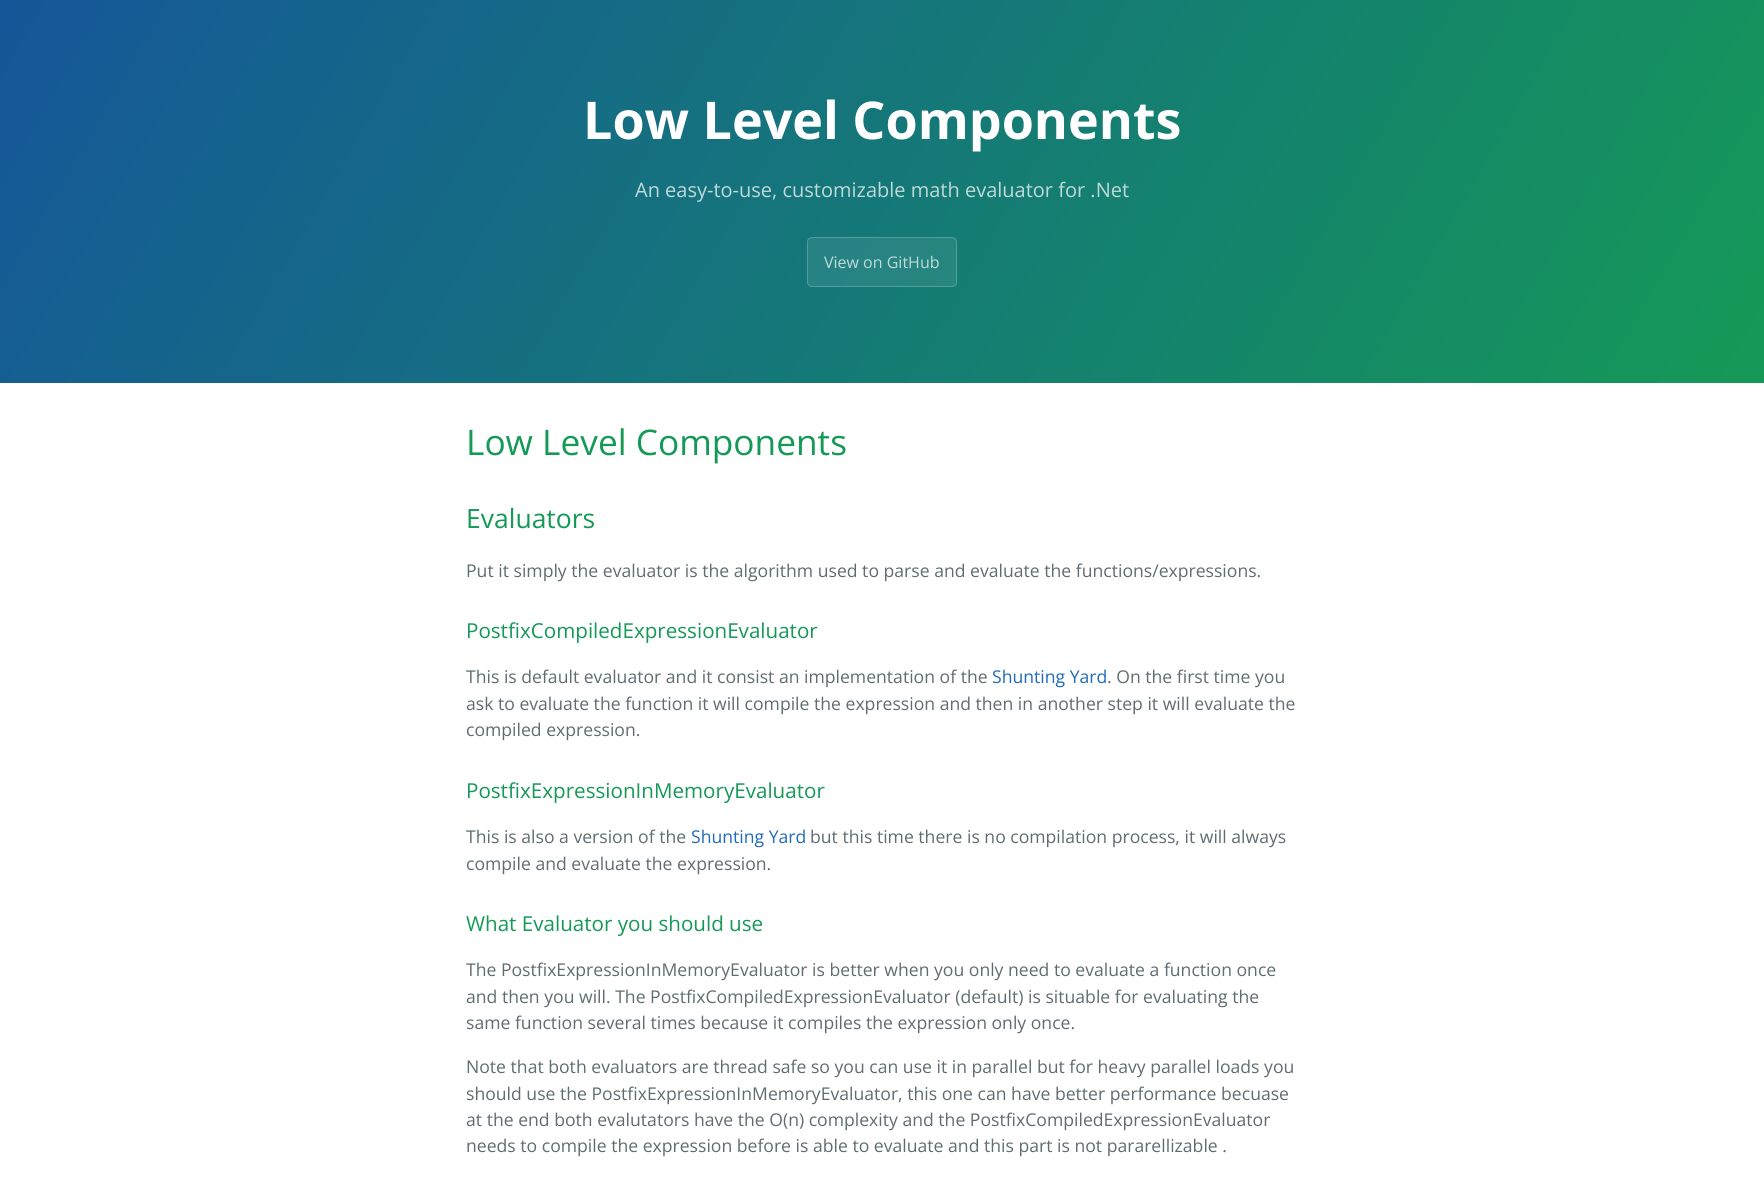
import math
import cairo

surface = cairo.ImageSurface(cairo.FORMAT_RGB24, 1764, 1194)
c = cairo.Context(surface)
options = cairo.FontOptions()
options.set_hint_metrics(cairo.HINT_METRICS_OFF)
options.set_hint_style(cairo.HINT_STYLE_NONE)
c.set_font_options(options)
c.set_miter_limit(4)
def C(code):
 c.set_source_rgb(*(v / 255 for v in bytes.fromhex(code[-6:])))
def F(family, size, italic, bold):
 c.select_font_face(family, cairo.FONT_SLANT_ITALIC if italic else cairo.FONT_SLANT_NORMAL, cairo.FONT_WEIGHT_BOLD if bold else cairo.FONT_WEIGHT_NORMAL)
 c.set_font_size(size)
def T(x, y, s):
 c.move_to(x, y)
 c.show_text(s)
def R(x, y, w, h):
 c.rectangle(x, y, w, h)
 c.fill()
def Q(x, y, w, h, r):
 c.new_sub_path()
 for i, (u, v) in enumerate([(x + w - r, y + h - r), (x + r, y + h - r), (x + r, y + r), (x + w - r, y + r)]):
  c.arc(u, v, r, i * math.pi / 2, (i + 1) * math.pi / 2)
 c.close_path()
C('ffffff')
c.paint()
gradient = cairo.LinearGradient(138,-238,1626,621)
gradient.add_color_stop_rgba(0,0.082,0.341,0.6,1)
gradient.add_color_stop_rgba(1,0.082,0.6,0.341,1)
c.set_source(gradient)
R(0,0,1764,383)
F('Open Sans',52,0,1)
C('ffffff')
T(583,139,'Low Level Components')
F('Open Sans',20,0,0)
C('bedad9')
T(635,197,'An easy-to-use, customizable math evaluator for .Net')
c.set_source_rgba(1,1,1,0.08)
Q(807,237,150,50,5)
c.fill()
Q(807.5,237.5,149,49,4.5)
c.set_source_rgba(1,1,1,0.2)
c.set_line_width(1)
c.stroke()
F('Open Sans',16,0,0)
C('bedad9')
T(824,268,'View on GitHub')
F('Open Sans',35.25,0,0)
C('159957')
T(466,455,'Low Level Components')
F('Open Sans',26.5,0,0)
T(466,528,'Evaluators')
F('Open Sans',17.6,0,0)
C('606c71')
T(466,577,'Put it simply the evaluator is the algorithm used to parse and evaluate the functions/expressions.')
F('Open Sans',20.6,0,0)
C('159957')
T(466,638,'PostfixCompiledExpressionEvaluator')
F('Open Sans',17.6,0,0)
C('606c71')
T(466,683,'This is default evaluator and it consist an implementation of the')
C('1e6bb8')
T(992,683,'Shunting Yard')
C('606c71')
T(1107,683,'. On the first time you')
T(466,710,'ask to evaluate the function it will compile the expression and then in another step it will evaluate the')
T(466,736,'compiled expression.')
F('Open Sans',20.6,0,0)
C('159957')
T(466,798,'PostfixExpressionInMemoryEvaluator')
F('Open Sans',17.6,0,0)
C('606c71')
T(466,843,'This is also a version of the')
C('1e6bb8')
T(691,843,'Shunting Yard')
C('606c71')
T(810,843,'but this time there is no compilation process, it will always')
T(466,870,'compile and evaluate the expression.')
F('Open Sans',20.6,0,0)
C('159957')
T(466,931,'What Evaluator you should use')
F('Open Sans',17.6,0,0)
C('606c71')
T(466,976,'The PostfixExpressionInMemoryEvaluator is better when you only need to evaluate a function once')
T(466,1003,'and then you will. The PostfixCompiledExpressionEvaluator (default) is situable for evaluating the')
T(466,1029,'same function several times because it compiles the expression only once.')
T(466,1073,'Note that both evaluators are thread safe so you can use it in parallel but for heavy parallel loads you')
T(466,1100,'should use the PostfixExpressionInMemoryEvaluator, this one can have better performance becuase')
T(466,1126,'at the end both evalutators have the O(n) complexity and the PostfixCompiledExpressionEvaluator')
T(466,1152,'needs to compile the expression before is able to evaluate and this part is not pararellizable .')
surface.write_to_png('o.png')
